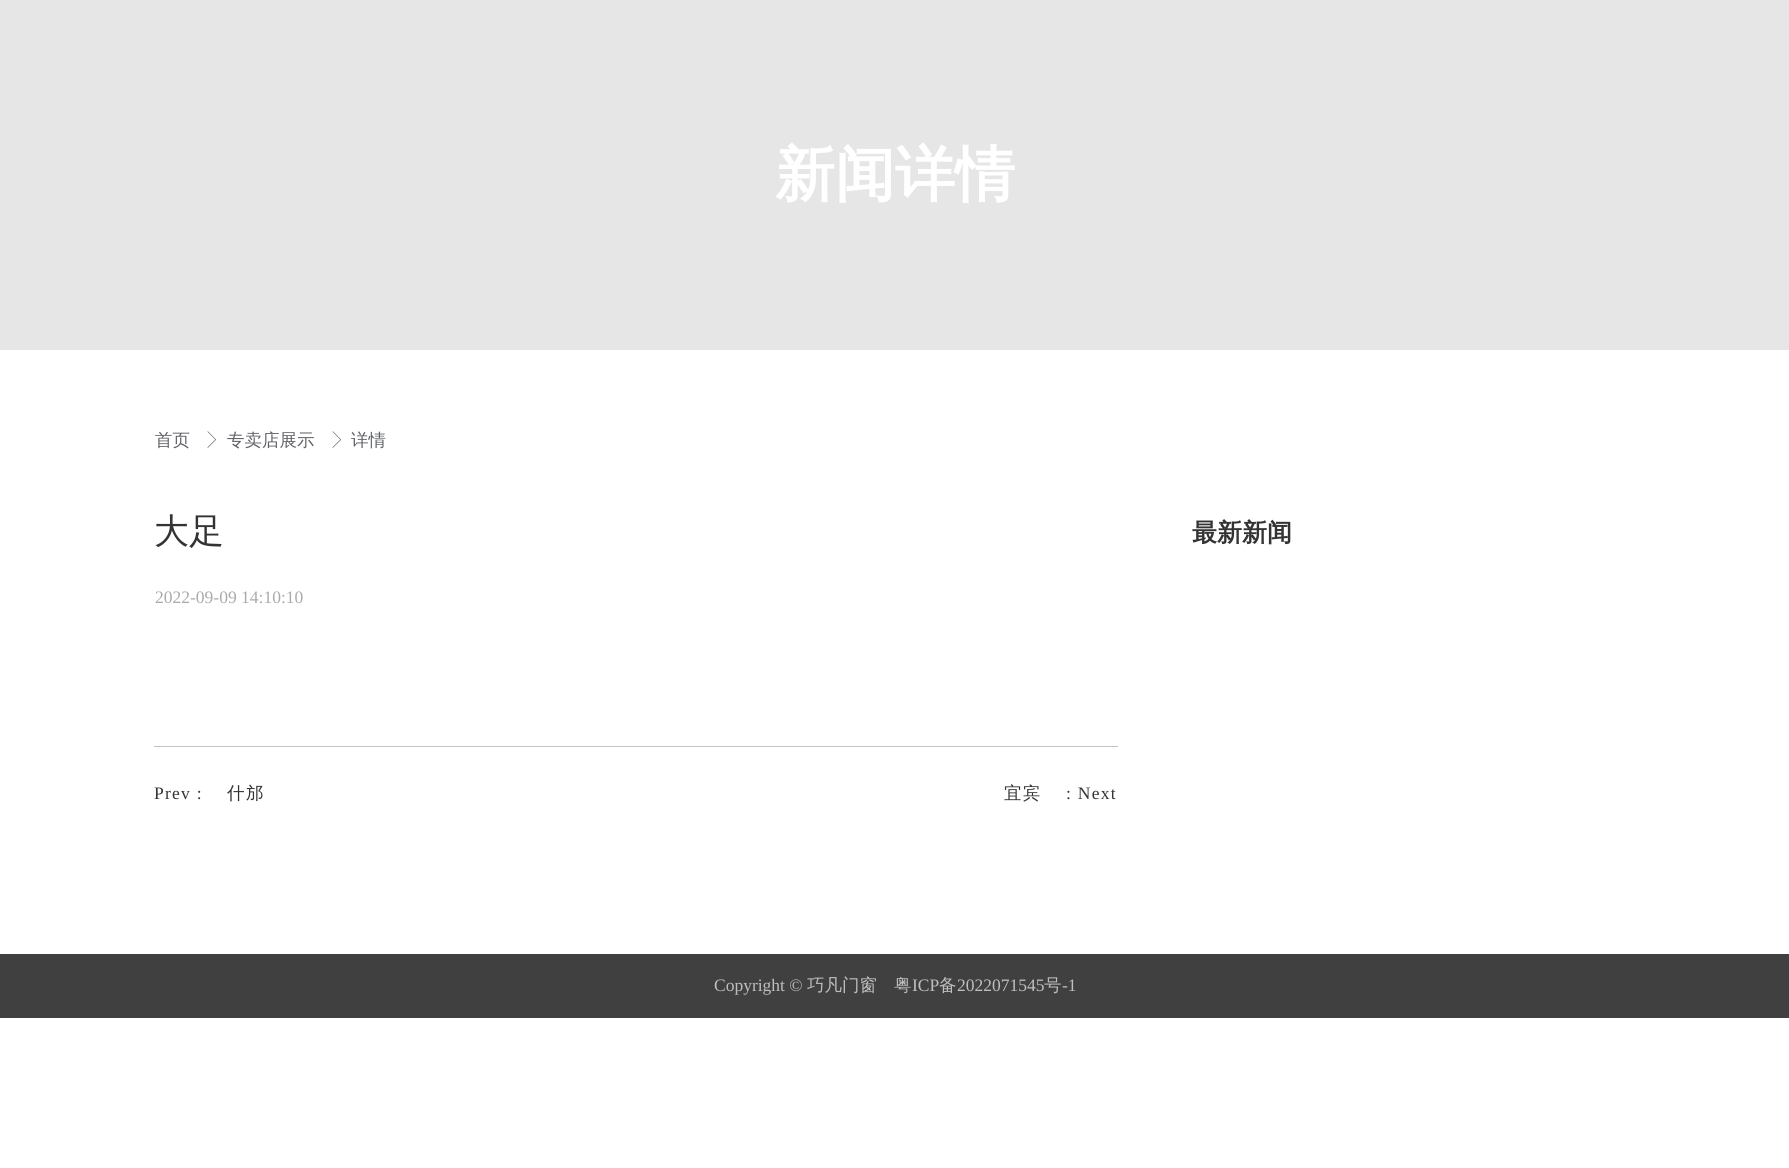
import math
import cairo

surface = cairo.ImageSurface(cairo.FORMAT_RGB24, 1789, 1168)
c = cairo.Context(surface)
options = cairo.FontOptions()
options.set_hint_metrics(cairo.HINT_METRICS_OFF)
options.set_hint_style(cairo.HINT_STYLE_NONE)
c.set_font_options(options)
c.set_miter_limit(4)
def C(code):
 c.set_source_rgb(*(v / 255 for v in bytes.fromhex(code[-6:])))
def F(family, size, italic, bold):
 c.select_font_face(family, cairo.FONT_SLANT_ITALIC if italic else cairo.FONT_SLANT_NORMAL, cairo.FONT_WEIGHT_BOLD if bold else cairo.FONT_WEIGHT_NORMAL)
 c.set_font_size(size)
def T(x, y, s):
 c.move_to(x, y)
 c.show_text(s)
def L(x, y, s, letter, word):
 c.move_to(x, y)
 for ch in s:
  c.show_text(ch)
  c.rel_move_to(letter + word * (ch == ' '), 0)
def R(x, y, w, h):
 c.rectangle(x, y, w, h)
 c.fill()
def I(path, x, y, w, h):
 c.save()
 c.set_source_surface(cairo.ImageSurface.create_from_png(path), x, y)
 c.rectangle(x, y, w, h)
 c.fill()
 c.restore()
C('ffffff')
c.paint()
C('e6e6e6')
R(0,0,1789,350)
F('WenQuanYi Zen Hei',60,0,1)
C('ffffff')
T(775,195,'新闻详情')
F('WenQuanYi Zen Hei Medium',17.5,0,0)
C('606266')
T(155,446,'首页')
I('1.png',207,431,9,17)
T(227,446,'专卖店展示')
I('1.png',332,431,9,17)
T(351,446,'详情')
F('WenQuanYi Zen Hei Medium',35,0,0)
C('333333')
T(154,543,'大足')
F('Liberation Serif',17.5,0,0)
C('aaaaaa')
T(155,603,'2022-09-09 14:10:10')
C('c4c4c4')
R(154,746,964,1)
C('333333')
L(154,799,'Prev :',1.25,0)
F('WenQuanYi Zen Hei Medium',17.5,0,0)
L(227,799,'什邡',1.25,0)
L(1004,799,'宜宾',1.25,0)
F('Liberation Serif',17.5,0,0)
L(1066,799,': Next',1.25,0)
F('WenQuanYi Zen Hei',25,0,1)
T(1192,541,'最新新闻')
C('404040')
R(0,954,1789,64)
F('Liberation Serif',17.5,0,0)
C('bfbfbf')
T(714,991,'Copyright ©')
F('WenQuanYi Zen Hei Medium',17.5,0,0)
T(807,991,'巧凡门窗')
T(894,991,'粤')
F('Liberation Serif',17.5,0,0)
T(912,991,'ICP')
F('WenQuanYi Zen Hei Medium',17.5,0,0)
T(939,991,'备')
F('Liberation Serif',17.5,0,0)
T(957,991,'2022071545')
F('WenQuanYi Zen Hei Medium',17.5,0,0)
T(1044,991,'号')
F('Liberation Serif',17.5,0,0)
T(1062,991,'-1')
surface.write_to_png('o.png')
